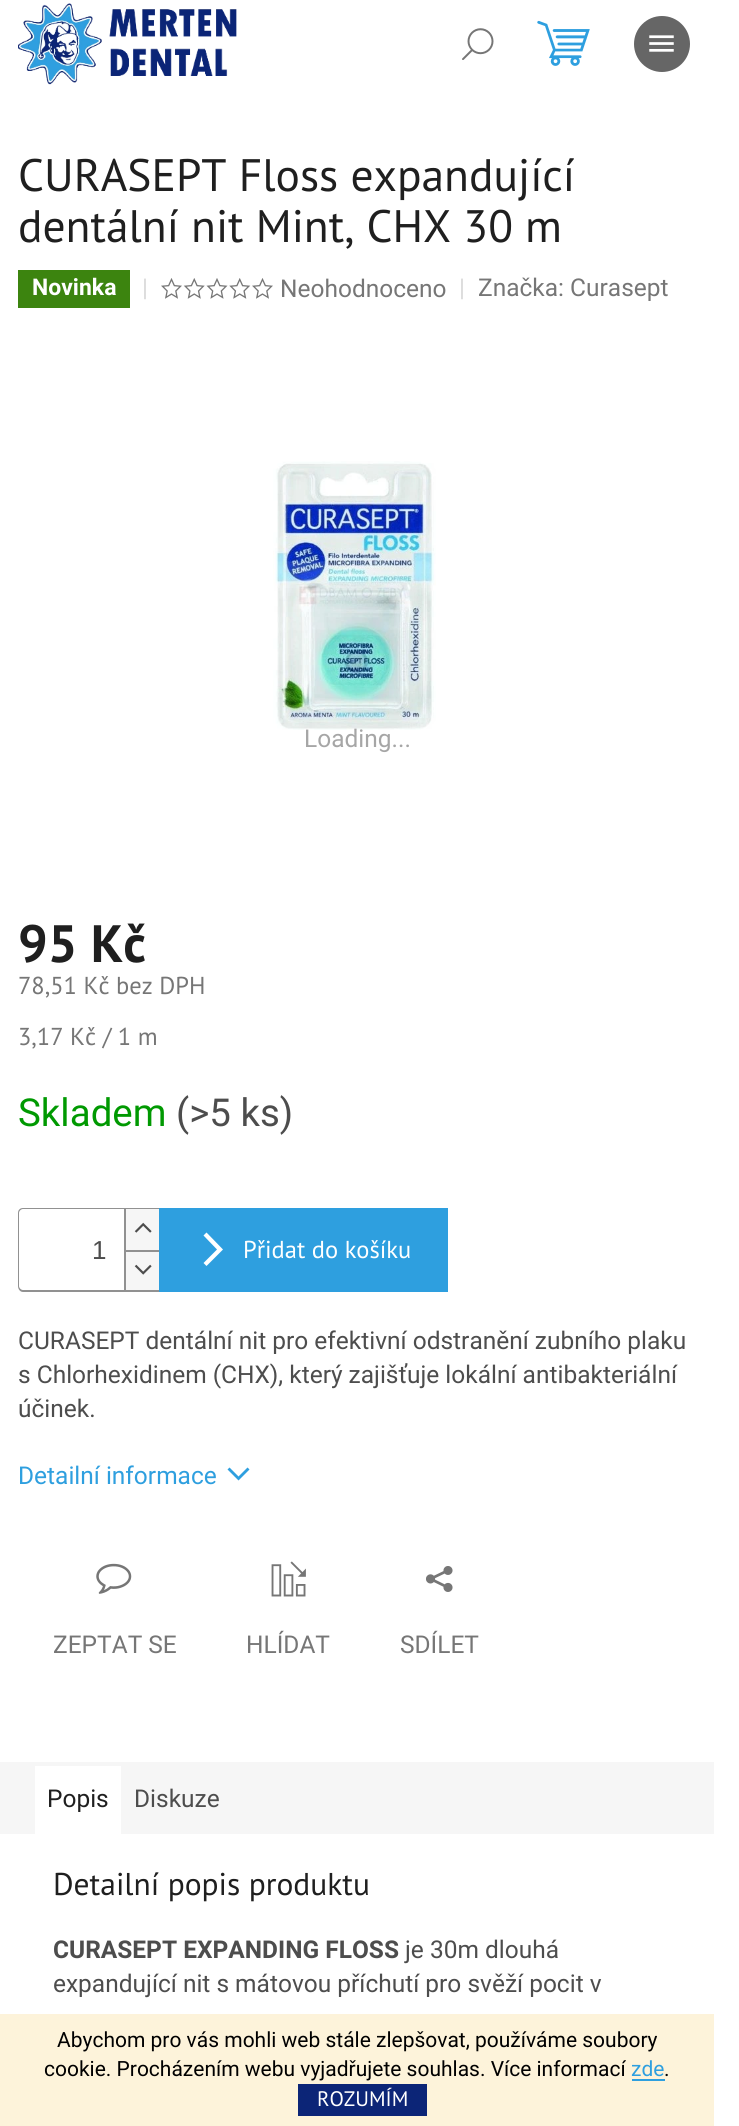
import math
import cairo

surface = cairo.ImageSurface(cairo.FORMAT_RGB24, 739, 2126)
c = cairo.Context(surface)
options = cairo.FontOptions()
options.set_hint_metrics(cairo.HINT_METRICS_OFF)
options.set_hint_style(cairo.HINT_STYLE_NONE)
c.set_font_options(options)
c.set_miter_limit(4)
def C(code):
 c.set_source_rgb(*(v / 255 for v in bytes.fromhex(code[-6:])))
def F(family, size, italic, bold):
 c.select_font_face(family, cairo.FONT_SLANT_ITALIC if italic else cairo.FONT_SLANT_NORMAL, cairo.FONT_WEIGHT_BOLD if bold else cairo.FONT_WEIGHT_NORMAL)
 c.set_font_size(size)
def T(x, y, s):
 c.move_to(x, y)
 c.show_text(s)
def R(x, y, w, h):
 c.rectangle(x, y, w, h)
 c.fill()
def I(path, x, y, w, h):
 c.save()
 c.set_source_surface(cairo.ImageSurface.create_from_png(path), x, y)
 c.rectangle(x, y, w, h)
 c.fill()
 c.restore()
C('ffffff')
c.paint()
I('1.png',18,3,219,82)
I('2.png',537,20,53,46)
I('3.png',462,28,32,32)
C('666666')
c.arc(662,44,28,0,2 * math.pi)
c.fill()
I('4.png',649,35,25,17)
F('PT Sans',45.5,0,0)
C('1f1f1f')
T(18,191,'CURASEPT Floss expandující')
T(18,242,'dentální nit Mint, CHX 30 m')
C('3c840f')
R(18,270,112,38)
F('Roboto',23,0,1)
C('ffffff')
T(32,295,'Novinka')
F('Roboto',24.5,0,0)
C('dadada')
T(142,296,'|')
I('5.png',161,278,21,21)
I('6.png',183,278,22,21)
I('7.png',206,278,22,21)
I('8.png',229,278,22,21)
I('5.png',252,278,21,21)
C('767676')
T(280,297,'Neohodnoceno')
C('dadada')
T(459,296,'|')
C('767676')
T(478,296,'Značka: Curasept')
I('9.png',273,461,163,269)
C('a6a6a6')
T(304,747,'Loading...')
F('PT Sans',52.5,0,1)
C('1f1f1f')
T(18,962,'95 Kč')
F('PT Sans',24.5,0,0)
C('767676')
T(18,994,'78,51 Kč bez DPH')
T(18,1045,'3,17 Kč / 1 m')
F('Roboto',38.5,0,0)
C('009901')
T(18,1126,'Skladem')
C('4d4d4d')
T(176,1126,'(>5 ks)')
C('919191')
c.set_fill_rule(cairo.FILL_RULE_EVEN_ODD)
c.new_path()
c.move_to(23,1208)
c.line_to(159,1208)
c.line_to(159,1292)
c.line_to(23,1292)
c.curve_to(20,1292,18,1289,18,1286)
c.line_to(18,1213)
c.curve_to(18,1210,20,1208,23,1208)
c.close_path()
c.move_to(23,1209)
c.line_to(159,1209)
c.line_to(159,1290)
c.line_to(23,1290)
c.curve_to(21,1290,19,1288,19,1286)
c.line_to(19,1213)
c.curve_to(19,1211,21,1209,23,1209)
c.close_path()
c.fill()
F('Liberation Sans',26,0,0)
C('4d4d4d')
T(92,1259,'1')
C('f6f6f6')
R(126,1209,33,41)
C('919191')
R(124,1209,2,41)
I('10.png',134,1222,18,11)
C('f6f6f6')
R(126,1252,33,38)
C('919191')
R(124,1250,35,2)
R(124,1250,2,40)
I('11.png',134,1264,18,11)
C('2e9fdf')
R(159,1208,289,84)
C('ffffff')
c.set_fill_rule(cairo.FILL_RULE_WINDING)
c.new_path()
c.move_to(206.5,1266)
c.line_to(203.5,1263)
c.line_to(217,1249.5)
c.line_to(203.5,1235.5)
c.line_to(206.5,1232.5)
c.line_to(223,1249.5)
c.close_path()
c.fill()
F('PT Sans',24.5,0,0)
T(243,1258,'Přidat do košíku')
F('Roboto',24.5,0,0)
C('4d4d4d')
T(18,1349,'CURASEPT dentální nit pro efektivní odstranění zubního plaku')
T(18,1383,'s Chlorhexidinem (CHX), který zajišťuje lokální antibakteriální')
T(18,1417,'účinek.')
C('2e9fdf')
T(18,1484,'Detailní informace')
c.new_path()
c.move_to(227.5,1469.5)
c.line_to(229.5,1467.5)
c.line_to(238.5,1476.5)
c.line_to(247.5,1467.5)
c.line_to(249.5,1469.5)
c.line_to(238.5,1480.5)
c.close_path()
c.fill()
I('12.png',96,1563,36,31)
C('767676')
T(53,1653,'ZEPTAT SE')
I('13.png',271,1561,35,36)
T(246,1653,'HLÍDAT')
I('14.png',426,1566,27,26)
T(400,1653,'SDÍLET')
C('f6f6f6')
R(0,1762,714,72)
C('ffffff')
R(35,1766,86,68)
C('1f1f1f')
T(47,1807,'Popis')
C('4d4d4d')
T(134,1807,'Diskuze')
F('PT Sans',31.5,0,0)
C('1f1f1f')
T(53,1895,'Detailní popis produktu')
F('Roboto',24.5,0,1)
C('4d4d4d')
T(53,1958,'CURASEPT EXPANDING FLOSS')
F('Roboto',24.5,0,0)
T(405,1958,'je 30m dlouhá')
T(53,1992,'expandující nit s mátovou příchutí pro svěží pocit v')
C('fdf3da')
R(0,2014,714,112)
F('Roboto',21,0,0)
C('000000')
T(57,2047,'Abychom pro vás mohli web stále zlepšovat, používáme soubory')
T(44,2076,'cookie. Procházením webu vyjadřujete souhlas. Více informací')
C('2e9fdf')
T(631,2076,'zde')
R(632,2079,33,2)
C('000000')
T(664,2076,'.')
C('0c2577')
R(298,2084,129,32)
F('PT Sans',21,0,0)
C('ffffff')
T(317,2106,'ROZUMÍM')
surface.write_to_png('o.png')
